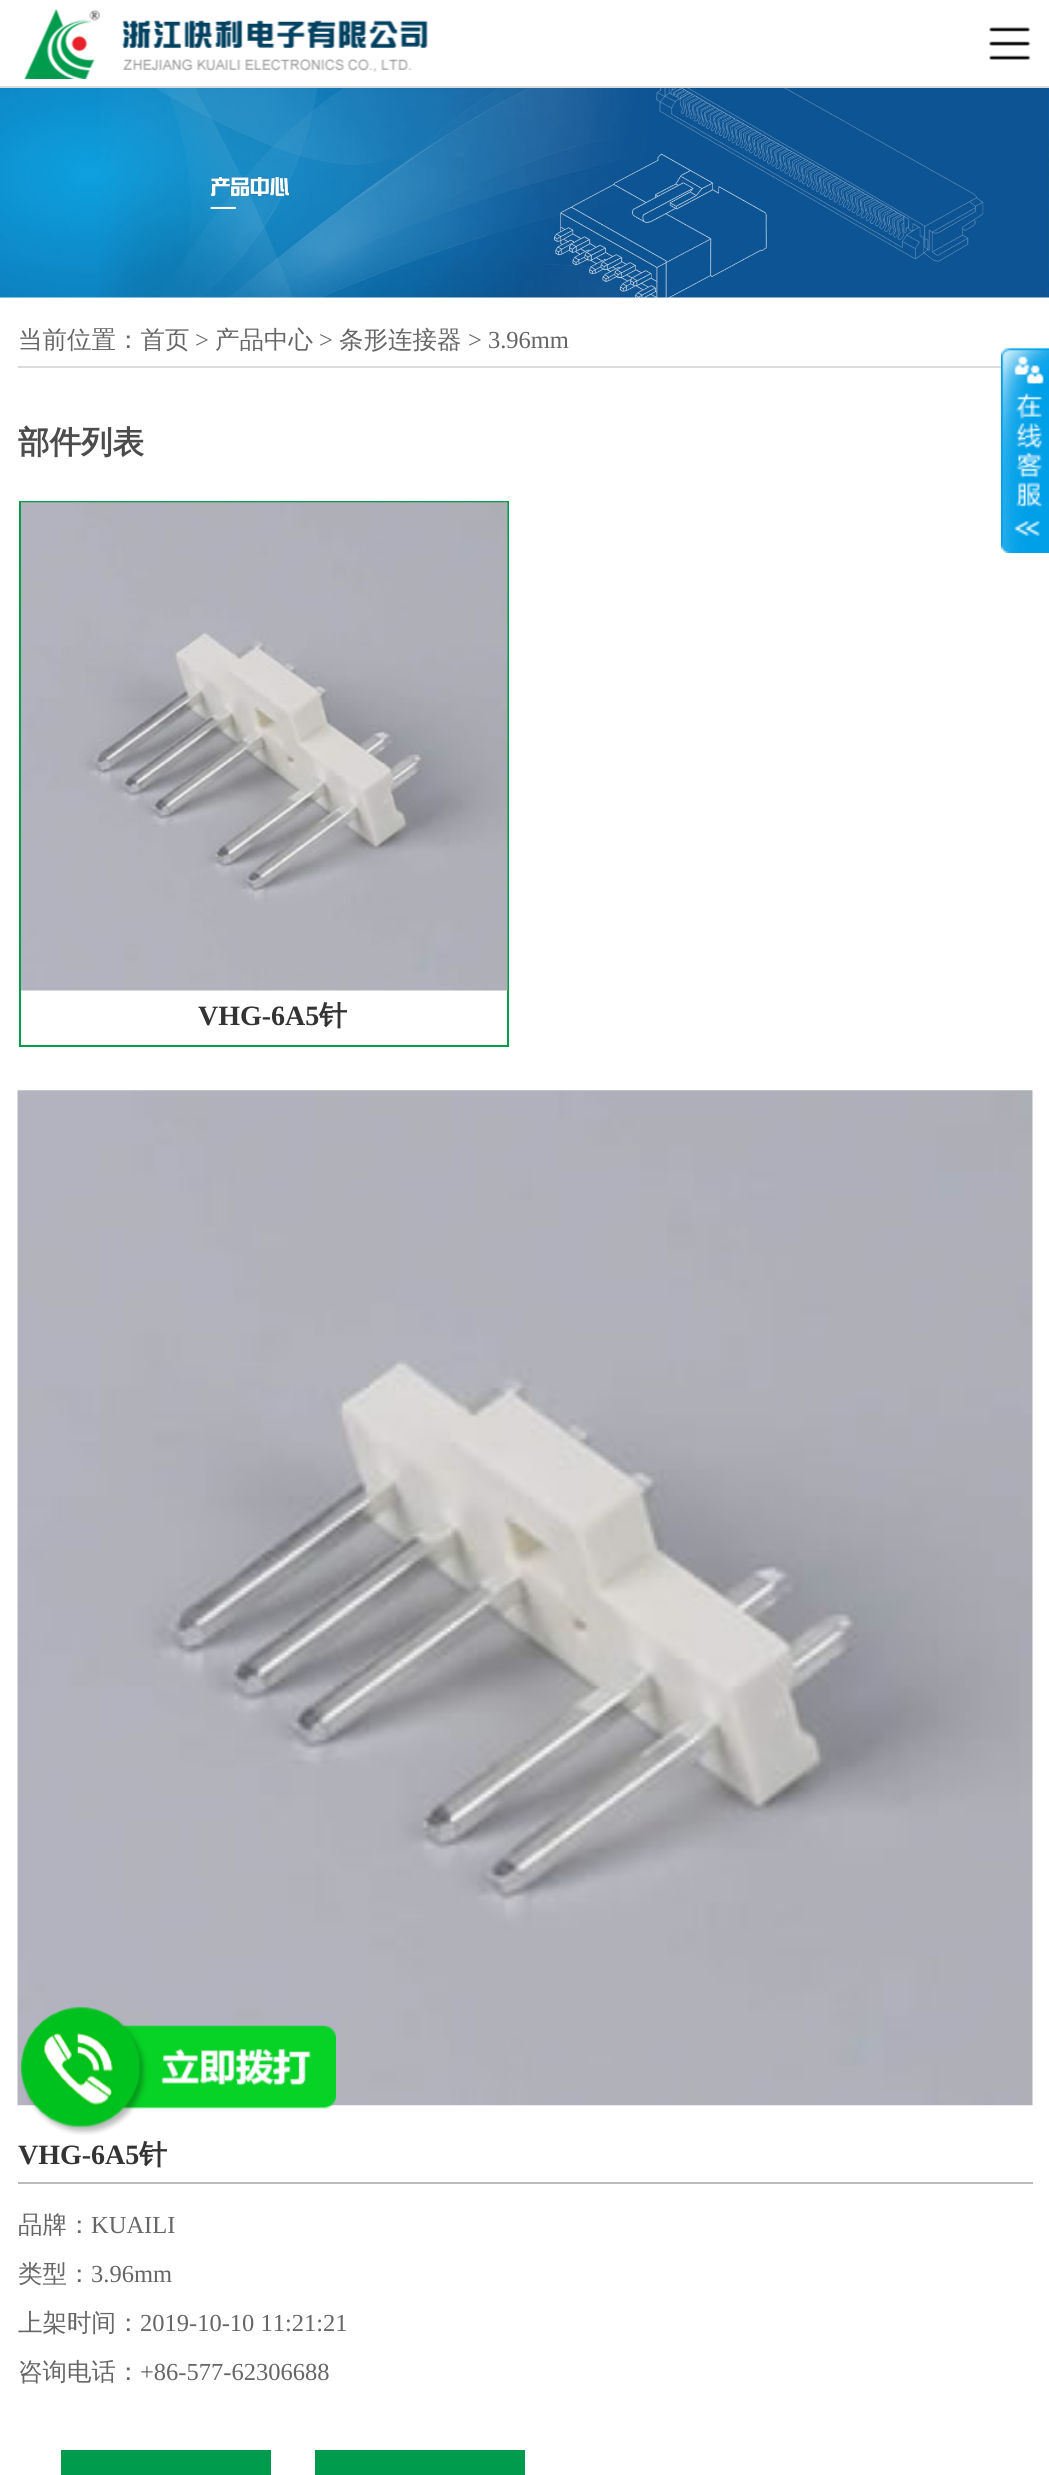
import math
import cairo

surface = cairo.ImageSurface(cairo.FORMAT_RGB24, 1049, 2475)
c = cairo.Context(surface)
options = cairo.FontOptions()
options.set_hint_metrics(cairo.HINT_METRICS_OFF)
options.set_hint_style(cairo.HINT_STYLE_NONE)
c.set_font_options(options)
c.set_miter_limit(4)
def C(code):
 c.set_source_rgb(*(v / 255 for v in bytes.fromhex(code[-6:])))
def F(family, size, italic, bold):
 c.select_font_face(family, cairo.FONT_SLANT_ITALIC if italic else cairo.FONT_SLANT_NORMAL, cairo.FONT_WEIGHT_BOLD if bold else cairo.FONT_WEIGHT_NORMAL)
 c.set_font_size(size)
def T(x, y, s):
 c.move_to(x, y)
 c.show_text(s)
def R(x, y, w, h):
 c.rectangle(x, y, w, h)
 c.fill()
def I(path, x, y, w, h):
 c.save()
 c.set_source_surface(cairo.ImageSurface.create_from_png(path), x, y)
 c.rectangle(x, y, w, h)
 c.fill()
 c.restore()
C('ffffff')
c.paint()
C('dbdbdb')
R(0,86,1049,2)
I('1.png',24,9,404,70)
I('2.png',989,26,42,34)
I('3.png',0,88,1049,210)
R(18,366,983,2)
F('WenQuanYi Zen Hei Medium',24.5,0,0)
C('666666')
T(18,348,'当前位置：首页')
F('Liberation Serif',24.5,0,0)
T(195,348,'>')
F('WenQuanYi Zen Hei Medium',24.5,0,0)
T(215,348,'产品中心')
F('Liberation Serif',24.5,0,0)
T(319,348,'>')
F('WenQuanYi Zen Hei Medium',24.5,0,0)
T(339,348,'条形连接器')
F('Liberation Serif',24.5,0,0)
T(468,348,'> 3.96mm')
F('WenQuanYi Zen Hei',31.5,0,1)
C('4c4c4c')
T(18,453,'部件列表')
c.rectangle(20,502,488,544)
C('009b4c')
c.stroke()
I('4.png',21,502,487,489)
F('Liberation Serif',28,0,1)
C('333333')
T(198,1025,'VHG-6A5')
F('WenQuanYi Zen Hei',28,0,1)
T(319,1025,'针')
I('5.png',17,1090,1016,1016)
C('bbbbbb')
R(18,2182,1015,2)
F('Liberation Serif',28,0,1)
C('333333')
T(18,2164,'VHG-6A5')
F('WenQuanYi Zen Hei',28,0,1)
T(139,2164,'针')
F('WenQuanYi Zen Hei Medium',24.5,0,0)
C('666666')
T(18,2233,'品牌：')
F('Liberation Serif',24.5,0,0)
T(91,2233,'KUAILI')
F('WenQuanYi Zen Hei Medium',24.5,0,0)
T(18,2282,'类型：')
F('Liberation Serif',24.5,0,0)
T(91,2282,'3.96mm')
F('WenQuanYi Zen Hei Medium',24.5,0,0)
T(18,2331,'上架时间：')
F('Liberation Serif',24.5,0,0)
T(140,2331,'2019-10-10 11:21:21')
F('WenQuanYi Zen Hei Medium',24.5,0,0)
T(18,2380,'咨询电话：')
F('Liberation Serif',24.5,0,0)
T(140,2380,'+86-577-62306688')
C('009b4c')
R(61,2450,210,25)
R(315,2450,210,25)
I('6.png',1001,347,48,206)
I('7.png',21,2007,315,128)
surface.write_to_png('o.png')
